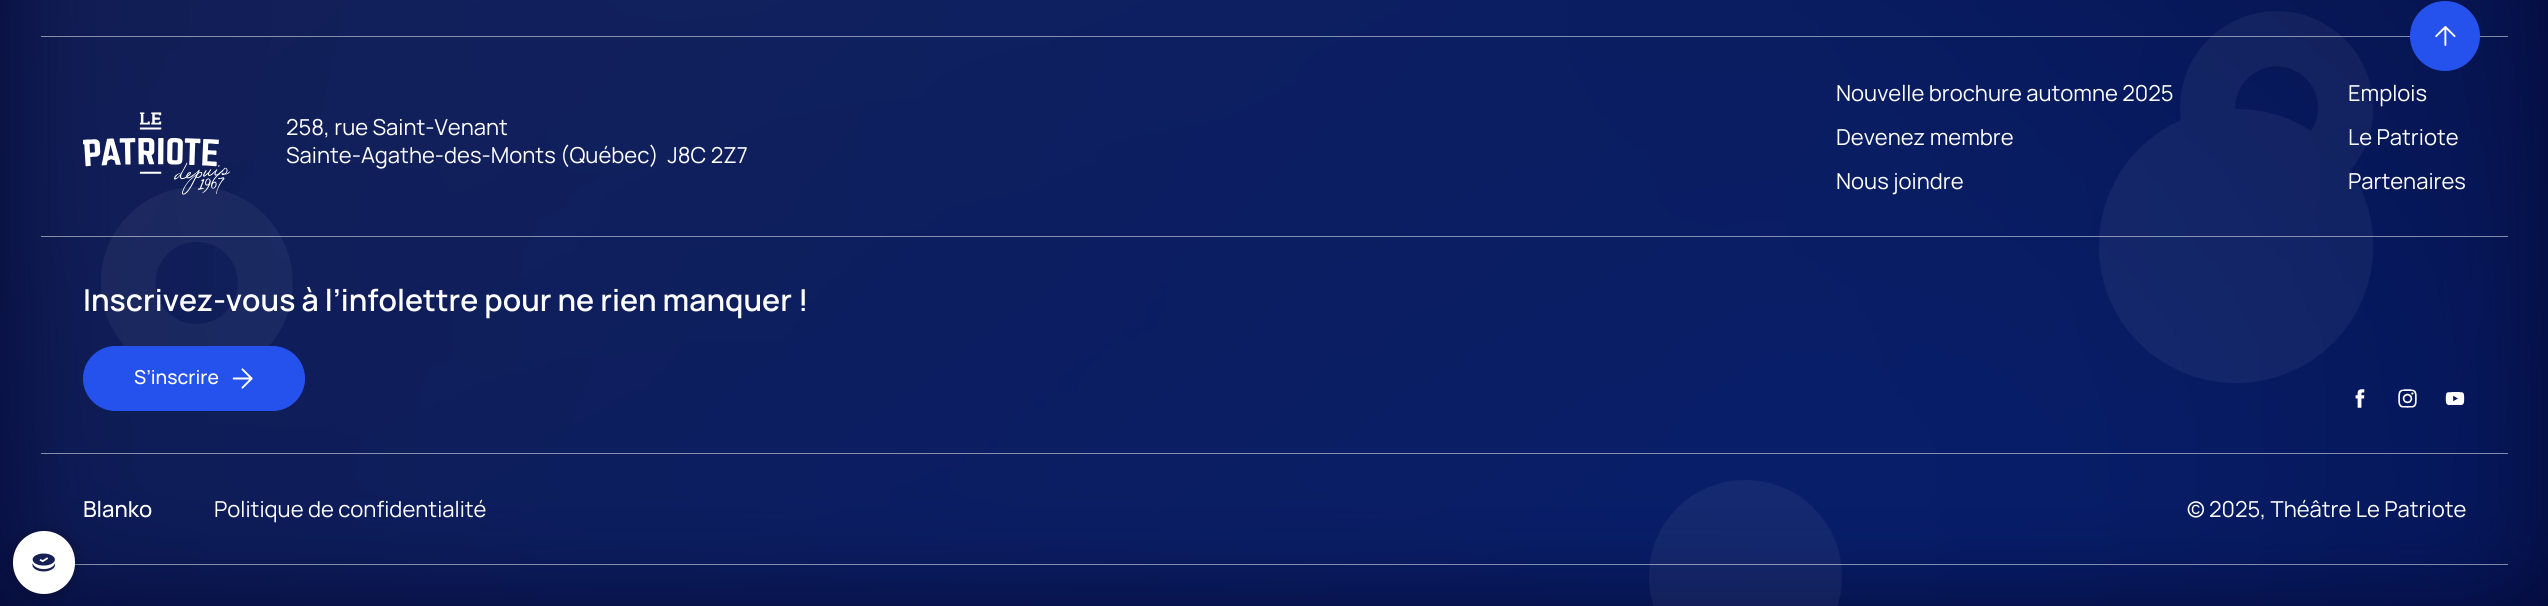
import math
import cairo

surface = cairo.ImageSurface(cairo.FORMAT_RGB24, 2548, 606)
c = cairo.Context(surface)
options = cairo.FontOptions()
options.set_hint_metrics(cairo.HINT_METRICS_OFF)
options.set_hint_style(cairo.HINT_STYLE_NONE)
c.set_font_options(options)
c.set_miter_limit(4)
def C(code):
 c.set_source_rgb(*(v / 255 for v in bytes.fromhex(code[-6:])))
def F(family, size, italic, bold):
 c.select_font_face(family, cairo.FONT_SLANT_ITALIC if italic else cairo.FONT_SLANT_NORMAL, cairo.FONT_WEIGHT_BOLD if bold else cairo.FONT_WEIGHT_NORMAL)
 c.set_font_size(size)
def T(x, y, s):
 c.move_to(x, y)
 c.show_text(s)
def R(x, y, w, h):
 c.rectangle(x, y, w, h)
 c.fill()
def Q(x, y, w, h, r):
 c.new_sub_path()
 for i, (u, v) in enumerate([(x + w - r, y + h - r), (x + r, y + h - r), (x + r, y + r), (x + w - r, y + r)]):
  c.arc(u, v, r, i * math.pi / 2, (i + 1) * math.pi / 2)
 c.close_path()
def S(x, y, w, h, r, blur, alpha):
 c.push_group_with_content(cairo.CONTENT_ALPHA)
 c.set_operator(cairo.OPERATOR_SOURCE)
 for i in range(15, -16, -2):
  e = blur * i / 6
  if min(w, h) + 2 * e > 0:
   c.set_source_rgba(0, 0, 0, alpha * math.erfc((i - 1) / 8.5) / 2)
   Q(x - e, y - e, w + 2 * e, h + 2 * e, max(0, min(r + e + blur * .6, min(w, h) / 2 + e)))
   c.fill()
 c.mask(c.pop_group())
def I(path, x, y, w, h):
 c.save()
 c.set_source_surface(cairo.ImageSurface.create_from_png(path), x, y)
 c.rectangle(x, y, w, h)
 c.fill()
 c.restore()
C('040937')
c.paint()
I('1.png',0,0,2548,606)
I('2.png',101,187,192,159)
I('3.png',2099,11,274,372)
I('4.png',1649,480,193,126)
c.set_source_rgba(1,1,1,0.5)
R(41,36,2467,1)
C('2552ed')
c.arc(2445,36,35,0,2 * math.pi)
c.fill()
I('5.png',2435,26,21,20)
c.set_source_rgba(1,1,1,0.5)
R(41,236,2467,1)
I('6.png',83,112,147,83)
F('Manrope',22,0,0)
C('ffffff')
T(286,135,'258, rue Saint-Venant')
T(286,163,'Sainte-Agathe-des-Monts (Québec)  J8C 2Z7')
T(1836,101,'Nouvelle brochure automne 2025')
T(1836,145,'Devenez membre')
T(1836,189,'Nous joindre')
T(2348,101,'Emplois')
T(2348,145,'Le Patriote')
T(2348,189,'Partenaires')
c.set_source_rgba(1,1,1,0.5)
R(41,453,2467,1)
F('Manrope SemiBold',30.25,0,0)
C('ffffff')
T(83,311,'Inscrivez-vous à l’infolettre pour ne rien manquer !')
C('2552ed')
Q(83.5,346.5,221,64,32)
c.fill_preserve()
c.set_line_width(1)
c.stroke()
F('Manrope Medium',19.25,0,0)
C('fffef7')
T(134,384,'S’inscrire')
I('7.png',232,368,21,21)
I('8.png',2355,389,10,19)
I('9.png',2398,389,19,19)
I('10.png',2445,392,20,13)
c.set_source_rgba(1,1,1,0.5)
R(74,564,2434,1)
F('Manrope Medium',22,0,0)
C('ffffff')
T(83,517,'Blanko')
F('Manrope',22,0,0)
T(214,517,'Politique de confidentialité')
T(2187,517,'© 2025, Théâtre Le Patriote')
C('000000')
S(13,531,62,63,31,6,.25)
C('ffffff')
Q(13,531,62,63,31)
c.fill()
I('11.png',32,553,24,19)
surface.write_to_png('o.png')
